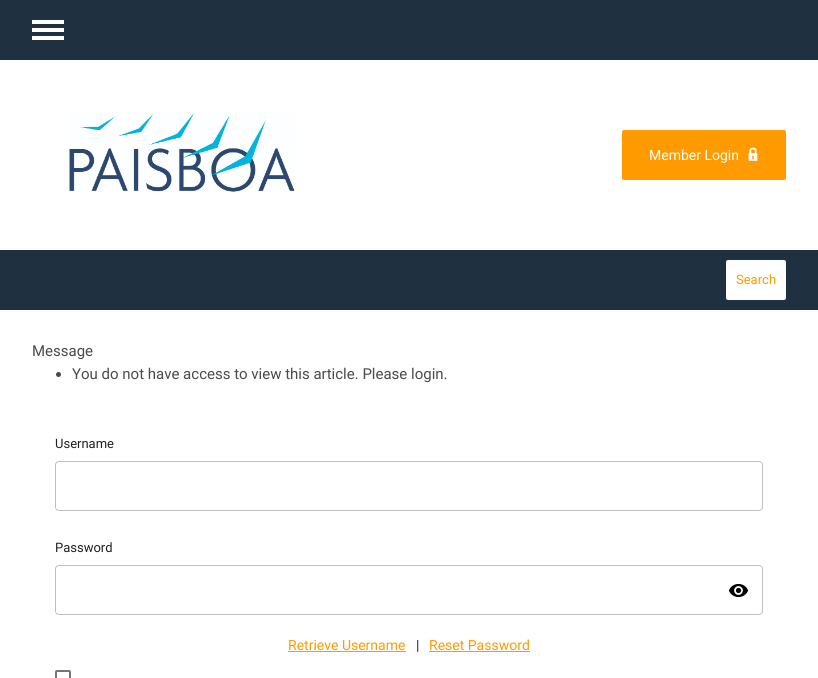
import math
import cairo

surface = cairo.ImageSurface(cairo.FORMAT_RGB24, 818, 678)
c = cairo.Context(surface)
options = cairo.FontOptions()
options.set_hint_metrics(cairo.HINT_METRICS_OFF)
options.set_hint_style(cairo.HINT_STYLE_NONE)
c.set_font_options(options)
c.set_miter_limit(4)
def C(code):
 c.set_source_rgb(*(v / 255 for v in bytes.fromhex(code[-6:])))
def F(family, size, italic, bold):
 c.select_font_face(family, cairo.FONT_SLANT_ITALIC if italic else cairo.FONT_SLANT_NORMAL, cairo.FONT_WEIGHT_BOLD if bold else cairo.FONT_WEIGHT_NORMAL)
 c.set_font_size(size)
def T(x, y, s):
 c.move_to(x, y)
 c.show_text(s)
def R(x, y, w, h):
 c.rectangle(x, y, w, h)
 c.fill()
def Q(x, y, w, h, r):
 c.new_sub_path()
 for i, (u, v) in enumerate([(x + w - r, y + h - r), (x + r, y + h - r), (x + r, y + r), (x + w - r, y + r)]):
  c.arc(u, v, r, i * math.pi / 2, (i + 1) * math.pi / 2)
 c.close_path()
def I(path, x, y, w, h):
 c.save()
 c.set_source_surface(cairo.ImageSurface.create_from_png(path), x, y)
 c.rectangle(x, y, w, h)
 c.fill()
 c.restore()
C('ffffff')
c.paint()
C('1f3141')
R(0,0,818,60)
I('1.png',32,20,32,20)
I('2.png',69,113,226,79)
C('ff9a00')
Q(622,130,164,50,2)
c.fill()
F('Roboto',14,0,0)
C('ffffff')
T(649,160,'Member Login')
I('3.png',748,147,10,14)
C('1f3141')
R(0,250,818,60)
C('ffffff')
Q(726,260,60,40,2)
c.fill()
F('Roboto',13,0,0)
C('ff9a00')
T(736,284,'Search')
F('Roboto',15,0,0)
C('4a4a4a')
T(32,356,'Message')
c.new_path()
c.arc(58.5,374.5,2.5,0,2 * math.pi)
c.fill()
T(72,379,'You do not have access to view this article. Please login.')
F('Roboto',13,0,0)
C('212121')
T(55,448,'Username')
Q(55.5,461.5,707,49,3.5)
C('bfbfbf')
c.set_line_width(1)
c.stroke()
C('212121')
T(55,552,'Password')
Q(55.5,565.5,707,49,3.5)
C('bfbfbf')
c.stroke()
I('4.png',728,583,21,15)
F('Roboto',14,0,0)
C('ff9a00')
T(288,650,'Retrieve Username')
R(288,651,118,1)
C('212121')
T(416,650,'|')
C('ff9a00')
T(429,650,'Reset Password')
R(429,651,101,1)
Q(56,671,14,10,1)
C('757575')
c.set_line_width(2)
c.stroke()
surface.write_to_png('o.png')
